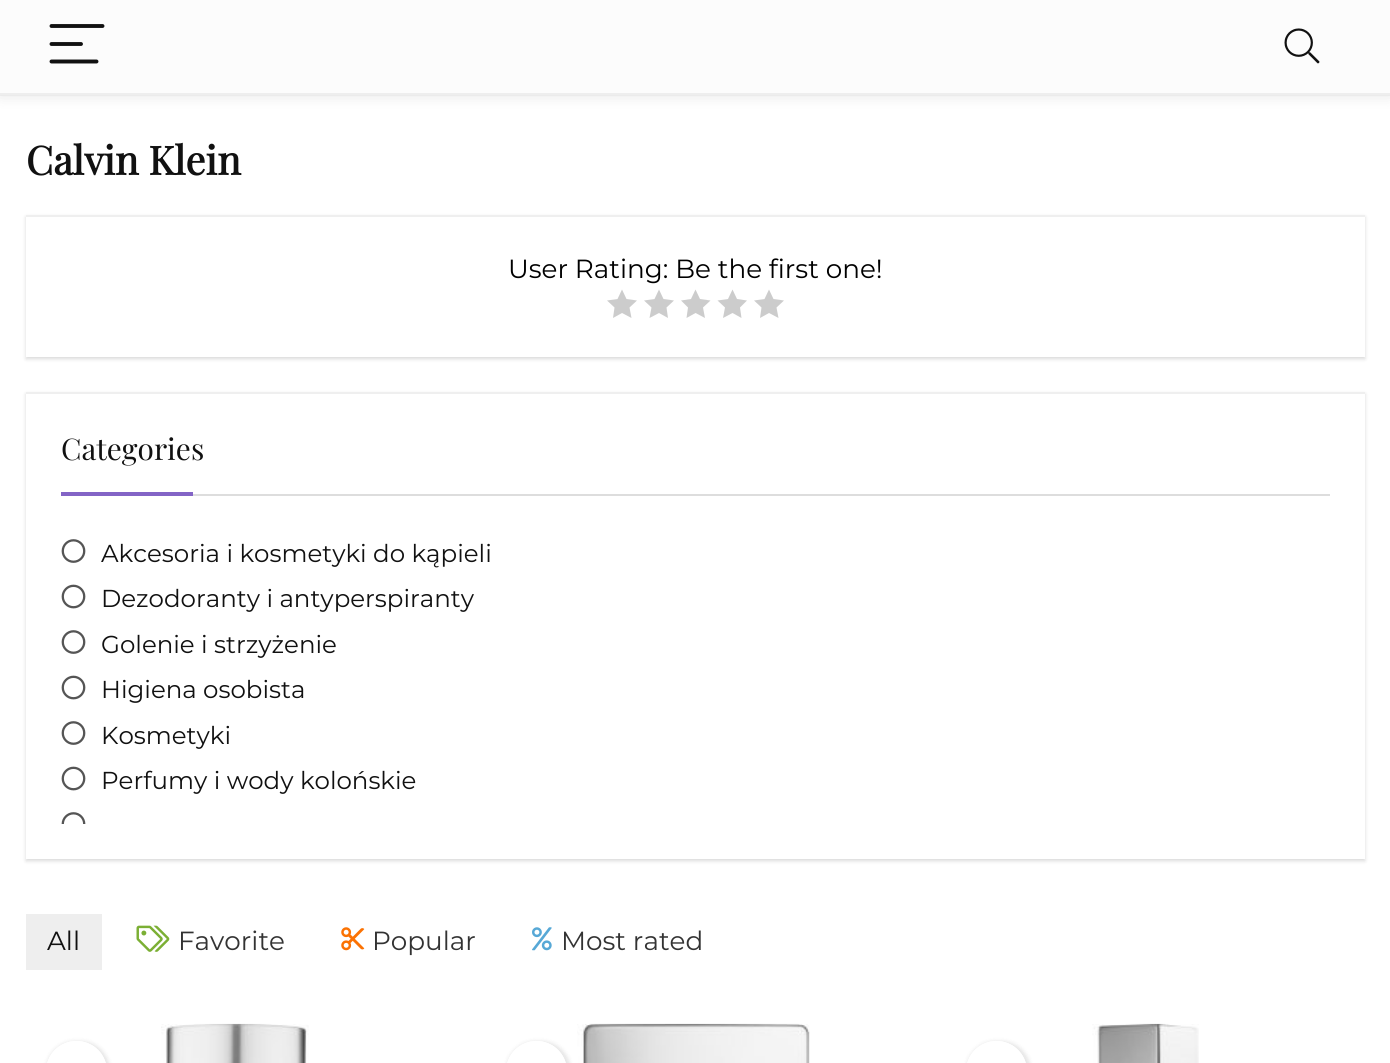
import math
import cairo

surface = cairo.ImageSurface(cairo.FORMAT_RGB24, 1390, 1063)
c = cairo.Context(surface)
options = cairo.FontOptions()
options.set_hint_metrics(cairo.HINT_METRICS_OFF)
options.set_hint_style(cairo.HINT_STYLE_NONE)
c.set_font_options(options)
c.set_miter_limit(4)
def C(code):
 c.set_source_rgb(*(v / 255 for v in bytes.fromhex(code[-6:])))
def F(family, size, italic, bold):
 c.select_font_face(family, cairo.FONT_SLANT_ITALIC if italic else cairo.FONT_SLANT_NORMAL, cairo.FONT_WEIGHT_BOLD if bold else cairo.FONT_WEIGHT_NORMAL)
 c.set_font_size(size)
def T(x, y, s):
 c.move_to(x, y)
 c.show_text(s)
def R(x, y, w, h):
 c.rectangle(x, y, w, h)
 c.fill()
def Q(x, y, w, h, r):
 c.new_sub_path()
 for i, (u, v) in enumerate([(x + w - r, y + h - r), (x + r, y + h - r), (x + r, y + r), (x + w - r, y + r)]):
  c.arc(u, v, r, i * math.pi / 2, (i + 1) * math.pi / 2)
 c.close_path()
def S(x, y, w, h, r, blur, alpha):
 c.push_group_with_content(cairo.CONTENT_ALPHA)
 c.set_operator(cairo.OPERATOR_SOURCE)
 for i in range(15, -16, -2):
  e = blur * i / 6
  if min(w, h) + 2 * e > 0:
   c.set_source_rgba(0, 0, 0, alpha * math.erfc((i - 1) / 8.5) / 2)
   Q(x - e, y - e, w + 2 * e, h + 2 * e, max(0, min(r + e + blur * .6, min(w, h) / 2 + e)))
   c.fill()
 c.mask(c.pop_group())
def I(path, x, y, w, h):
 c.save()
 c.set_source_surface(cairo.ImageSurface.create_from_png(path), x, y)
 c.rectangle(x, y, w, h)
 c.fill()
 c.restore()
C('ffffff')
c.paint()
c.rectangle(-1,-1,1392,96)
C('f7f7f7')
c.stroke()
C('000000')
S(0,2,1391,94,0,7,.1)
C('fcfcfc')
R(0,0,1390,93)
C('eeeeee')
R(0,93,1390,2)
c.new_path()
c.move_to(51.5,26)
c.line_to(102.5,26)
c.move_to(51.5,44)
c.line_to(81,44)
c.move_to(51.5,61.5)
c.line_to(96.5,61.5)
C('111111')
c.set_line_width(3.9)
c.set_line_cap(cairo.LINE_CAP_ROUND)
c.stroke()
I('1.png',1284,28,36,36)
F('Playfair Display',39.5,0,1)
T(26,175,'Calvin Klein')
C('000000')
S(26,217,1339,142,0,2,.15)
C('ffffff')
R(26,217,1339,140)
C('efefef')
R(26,215,1339,2)
F('Montserrat Thin',26.25,0,0)
C('000000')
T(508,278,'User Rating: Be the first one!')
C('cccccc')
c.new_path()
c.move_to(637,300.5)
c.line_to(626.5,299)
c.line_to(622,289.5)
c.line_to(617.5,299)
c.line_to(607,300.5)
c.line_to(614.5,307.5)
c.line_to(613,318)
c.line_to(622,313)
c.line_to(631.5,318)
c.line_to(629.5,307.5)
c.close_path()
c.fill()
c.new_path()
c.move_to(674,300.5)
c.line_to(663.5,299)
c.line_to(659,289.5)
c.line_to(654.5,299)
c.line_to(644,300.5)
c.line_to(651.5,307.5)
c.line_to(649.5,318)
c.line_to(659,313)
c.line_to(668,318)
c.line_to(666.5,307.5)
c.close_path()
c.fill()
c.new_path()
c.move_to(710.5,300.5)
c.line_to(700,299)
c.line_to(695.5,289.5)
c.line_to(691,299)
c.line_to(681,300.5)
c.line_to(688,307.5)
c.line_to(686.5,318)
c.line_to(695.5,313)
c.line_to(705,318)
c.line_to(703,307.5)
c.close_path()
c.fill()
c.new_path()
c.move_to(747,300.5)
c.line_to(737,299)
c.line_to(732.5,289.5)
c.line_to(728,299)
c.line_to(717.5,300.5)
c.line_to(725,307.5)
c.line_to(723,318)
c.line_to(732.5,313)
c.line_to(741.5,318)
c.line_to(740,307.5)
c.close_path()
c.fill()
c.new_path()
c.move_to(784,300.5)
c.line_to(773.5,299)
c.line_to(769,289.5)
c.line_to(764.5,299)
c.line_to(754,300.5)
c.line_to(761.5,307.5)
c.line_to(760,318)
c.line_to(769,313)
c.line_to(778.5,318)
c.line_to(776.5,307.5)
c.close_path()
c.fill()
C('000000')
S(26,394,1339,467,0,2,.15)
C('ffffff')
R(26,394,1339,465)
C('efefef')
R(26,392,1339,2)
C('dddddd')
R(193,494,1137,2)
F('Playfair Display',29.75,0,0)
C('111111')
T(61,460,'Categories')
C('8364c6')
R(61,492,132,4)
I('2.png',61,539,25,24)
F('Montserrat Thin',24.5,0,0)
C('111111')
T(101,562,'Akcesoria i kosmetyki do kąpieli')
I('3.png',61,584,25,25)
T(101,607,'Dezodoranty i antyperspiranty')
I('2.png',61,630,25,24)
T(101,653,'Golenie i strzyżenie')
I('3.png',61,675,25,25)
T(101,698,'Higiena osobista')
I('2.png',61,721,25,24)
T(101,744,'Kosmetyki')
I('3.png',61,766,25,25)
T(101,789,'Perfumy i wody kolońskie')
I('4.png',61,812,25,12)
C('eeeeee')
R(26,914,76,56)
F('Montserrat Thin',26.25,0,0)
C('111111')
T(47,950,'All')
I('5.png',136,925,34,27)
C('333333')
T(178,950,'Favorite')
I('6.png',341,927,24,24)
T(372,950,'Popular')
I('7.png',532,927,20,24)
T(561,950,'Most rated')
c.save()
c.set_fill_rule(cairo.FILL_RULE_EVEN_ODD)
c.new_path()
c.move_to(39,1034)
c.line_to(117,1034)
c.line_to(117,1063)
c.line_to(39,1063)
c.close_path()
c.move_to(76.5,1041)
c.curve_to(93.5,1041,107,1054.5,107,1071.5)
c.line_to(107,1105.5)
c.curve_to(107,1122.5,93.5,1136,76.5,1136)
c.curve_to(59.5,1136,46,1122.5,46,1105.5)
c.line_to(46,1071.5)
c.curve_to(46,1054.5,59.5,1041,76.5,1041)
c.close_path()
c.clip()
C('000000')
S(46,1041,64,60,32,2,.1)
c.restore()
c.set_source_rgba(1,1,1,0.78)
Q(46,1041,61,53,30.5)
c.fill()
I('8.png',161,1023,148,40)
I('9.png',577,1023,233,40)
c.save()
c.set_fill_rule(cairo.FILL_RULE_EVEN_ODD)
c.new_path()
c.move_to(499,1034)
c.line_to(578,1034)
c.line_to(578,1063)
c.line_to(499,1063)
c.close_path()
c.move_to(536.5,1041)
c.curve_to(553.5,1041,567,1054.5,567,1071.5)
c.line_to(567,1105.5)
c.curve_to(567,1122.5,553.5,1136,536.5,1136)
c.curve_to(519.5,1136,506,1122.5,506,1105.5)
c.line_to(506,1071.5)
c.curve_to(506,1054.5,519.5,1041,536.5,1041)
c.close_path()
c.clip()
C('000000')
S(506,1041,65,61,32.5,2,.1)
c.restore()
Q(506,1041,61,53,30.5)
c.fill()
c.save()
c.set_fill_rule(cairo.FILL_RULE_EVEN_ODD)
c.new_path()
c.move_to(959,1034)
c.line_to(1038,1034)
c.line_to(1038,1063)
c.line_to(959,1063)
c.close_path()
c.move_to(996.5,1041)
c.curve_to(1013.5,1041,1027,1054.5,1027,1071.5)
c.line_to(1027,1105.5)
c.curve_to(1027,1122.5,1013.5,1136,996.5,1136)
c.curve_to(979.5,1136,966,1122.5,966,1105.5)
c.line_to(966,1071.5)
c.curve_to(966,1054.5,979.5,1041,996.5,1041)
c.close_path()
c.clip()
C('000000')
S(966,1041,65,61,32.5,2,.1)
c.restore()
Q(966,1041,61,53,30.5)
c.fill()
I('10.png',1092,1023,107,40)
surface.write_to_png('o.png')
